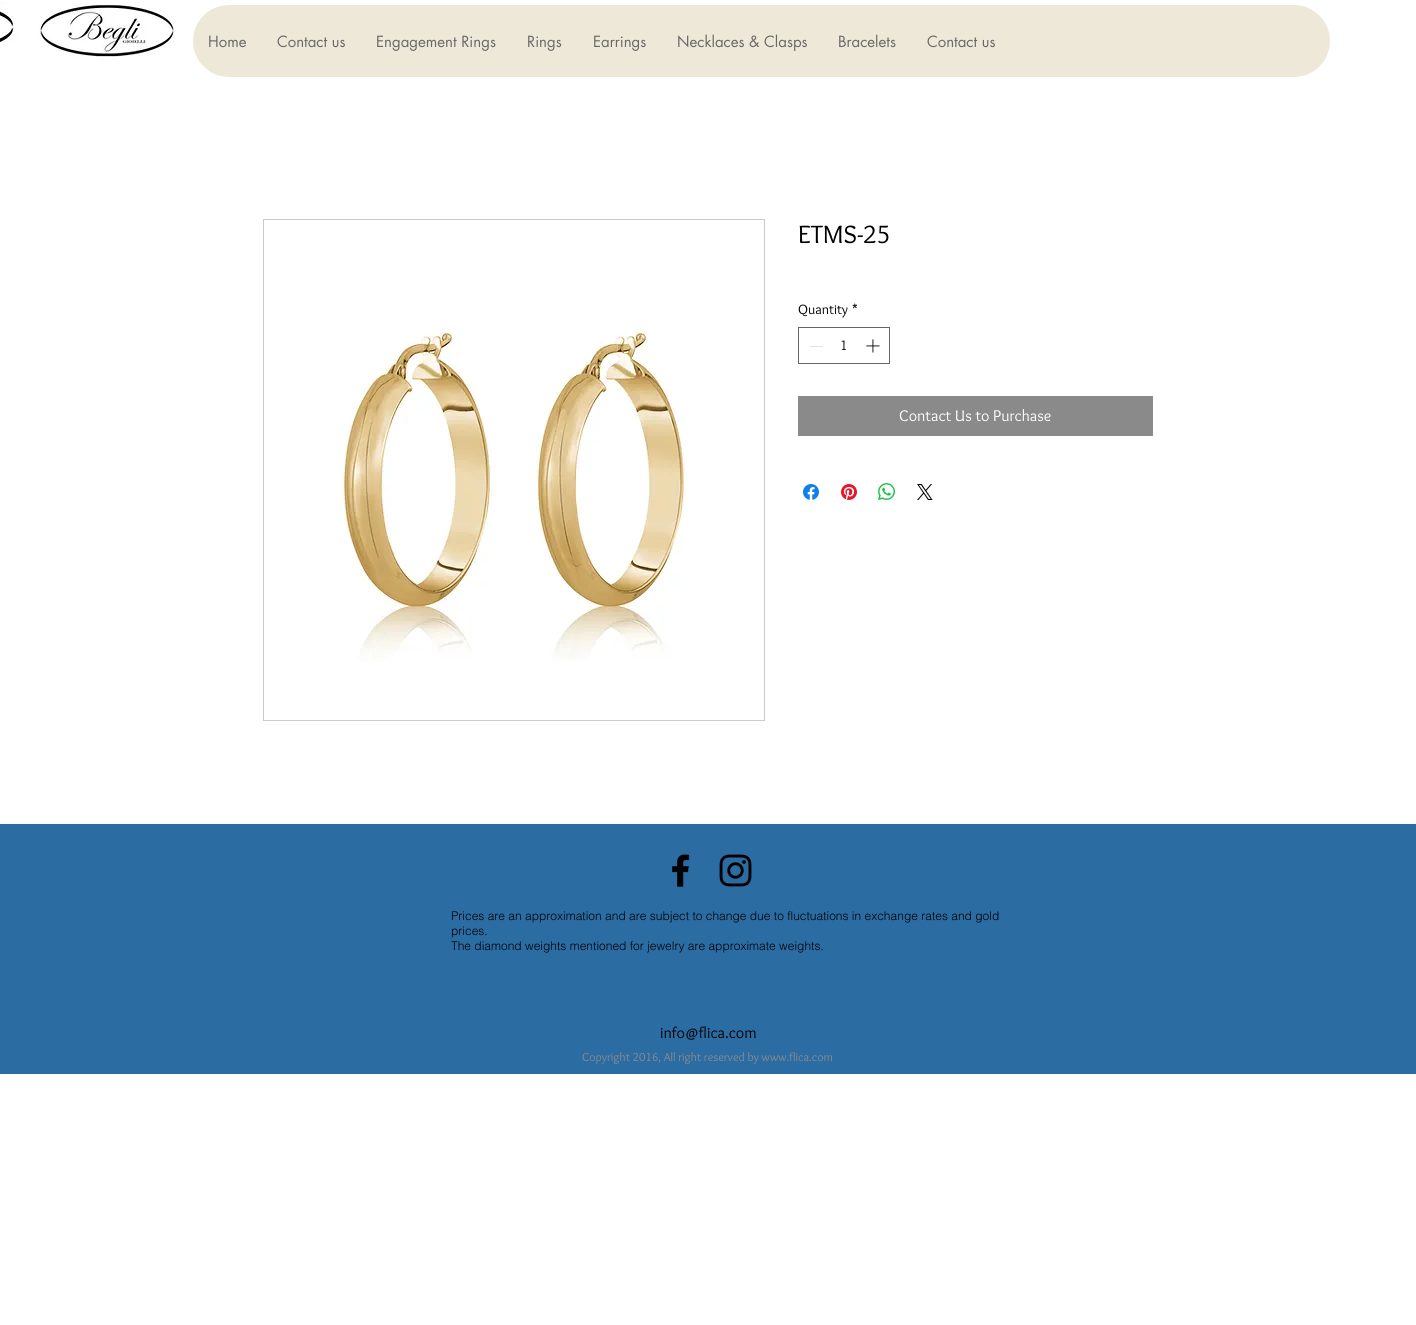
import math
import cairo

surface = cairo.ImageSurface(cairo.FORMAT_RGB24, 1416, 1325)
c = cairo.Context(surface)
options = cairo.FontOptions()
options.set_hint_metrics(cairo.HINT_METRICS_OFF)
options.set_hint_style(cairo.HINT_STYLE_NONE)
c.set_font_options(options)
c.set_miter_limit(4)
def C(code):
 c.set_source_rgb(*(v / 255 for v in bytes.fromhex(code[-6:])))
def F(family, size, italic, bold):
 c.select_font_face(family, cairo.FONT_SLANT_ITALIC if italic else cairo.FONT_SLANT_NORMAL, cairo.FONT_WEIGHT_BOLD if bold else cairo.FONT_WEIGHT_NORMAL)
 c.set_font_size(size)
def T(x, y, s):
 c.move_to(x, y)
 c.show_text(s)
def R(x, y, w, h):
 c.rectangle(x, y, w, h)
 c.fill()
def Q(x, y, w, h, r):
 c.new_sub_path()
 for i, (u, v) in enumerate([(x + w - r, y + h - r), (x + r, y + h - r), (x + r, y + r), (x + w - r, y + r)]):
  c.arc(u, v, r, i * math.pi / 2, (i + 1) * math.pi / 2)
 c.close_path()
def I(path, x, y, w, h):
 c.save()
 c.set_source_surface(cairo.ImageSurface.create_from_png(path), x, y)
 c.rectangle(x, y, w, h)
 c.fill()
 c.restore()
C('ffffff')
c.paint()
I('1.png',0,2,174,58)
C('eee8d8')
Q(193,5,1137,72,36)
c.fill()
F('futura',15,0,0)
C('696969')
T(208,47,'Home')
T(277,47,'Contact us')
T(376,47,'Engagement Rings')
T(527,47,'Rings')
T(593,47,'Earrings')
T(677,47,'Necklaces & Clasps')
T(838,47,'Bracelets')
T(927,47,'Contact us')
c.rectangle(263.5,219.5,501,501)
C('cccccc')
c.set_line_width(1)
c.stroke()
I('2.png',343,331,344,331)
F('Overlock',26,0,0)
C('000000')
T(798,243,'ETMS-25')
F('Overlock',14,0,0)
T(798,314,'Quantity')
T(852,314,'*')
c.rectangle(798.5,327.5,91,36)
C('666666')
c.stroke()
C('e3e3e3')
R(810,346,13,1)
C('000000')
T(840,350,'1')
I('3.png',866,339,14,14)
C('8b8a8a')
R(798,396,355,40)
F('Overlock',16,0,0)
C('ffffff')
T(899,421,'Contact Us to Purchase')
I('4.png',803,484,16,16)
I('5.png',841,484,16,16)
I('6.png',878,483,17,17)
I('7.png',917,484,16,16)
C('2b6ca3')
R(0,824,1416,250)
I('8.png',672,854,18,33)
I('9.png',719,854,33,33)
F('helvetica Light',12,0,0)
C('000000')
T(451,920,'Prices are an approximation and are subject to change due to fluctuations in exchange rates and gold')
T(451,935,'prices.')
T(451,950,'The diamond weights mentioned for jewelry are approximate weights.')
F('Overlock',16,0,0)
T(660,1038,'info@flica.com')
F('Overlock',12,0,0)
C('8b8a8a')
T(582,1061,'Copyright 2016, All right reserved by www.flica.com')
surface.write_to_png('o.png')
